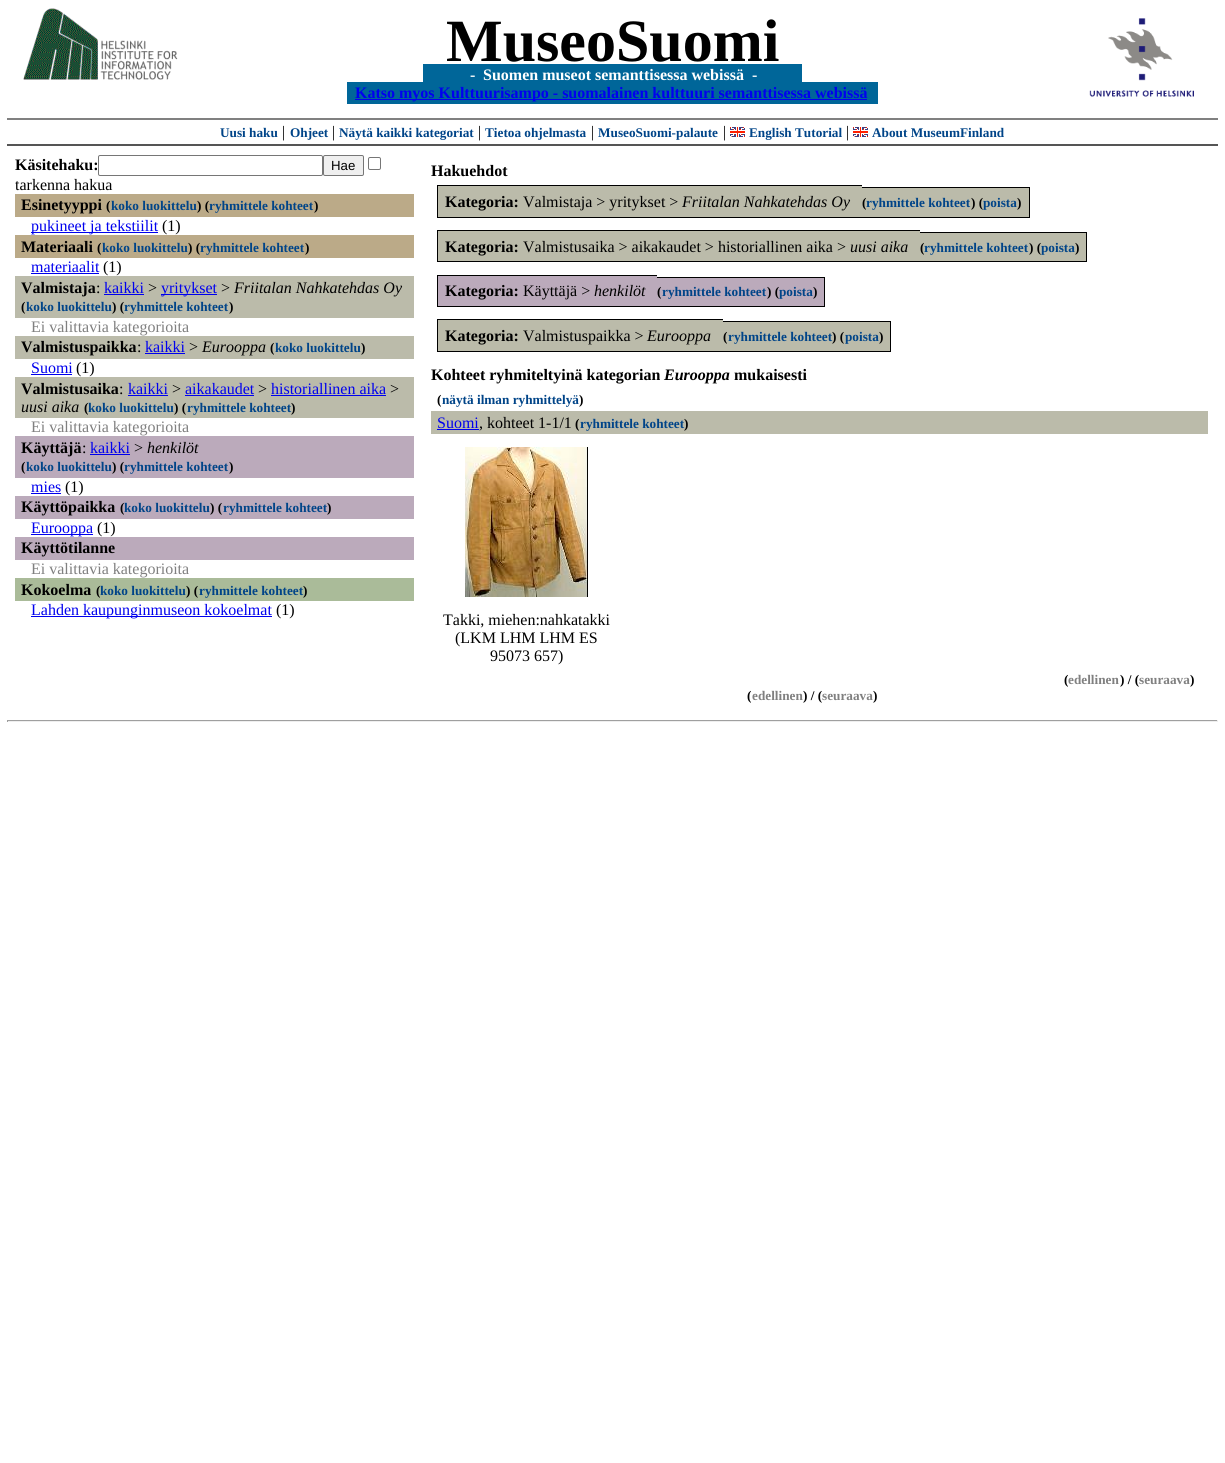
import math
import cairo

surface = cairo.ImageSurface(cairo.FORMAT_RGB24, 1225, 1463)
c = cairo.Context(surface)
options = cairo.FontOptions()
options.set_hint_metrics(cairo.HINT_METRICS_OFF)
options.set_hint_style(cairo.HINT_STYLE_NONE)
c.set_font_options(options)
c.set_miter_limit(4)
def C(code):
 c.set_source_rgb(*(v / 255 for v in bytes.fromhex(code[-6:])))
def F(family, size, italic, bold):
 c.select_font_face(family, cairo.FONT_SLANT_ITALIC if italic else cairo.FONT_SLANT_NORMAL, cairo.FONT_WEIGHT_BOLD if bold else cairo.FONT_WEIGHT_NORMAL)
 c.set_font_size(size)
def T(x, y, s):
 c.move_to(x, y)
 c.show_text(s)
def R(x, y, w, h):
 c.rectangle(x, y, w, h)
 c.fill()
def Q(x, y, w, h, r):
 c.new_sub_path()
 for i, (u, v) in enumerate([(x + w - r, y + h - r), (x + r, y + h - r), (x + r, y + r), (x + w - r, y + r)]):
  c.arc(u, v, r, i * math.pi / 2, (i + 1) * math.pi / 2)
 c.close_path()
def I(path, x, y, w, h):
 c.save()
 c.set_source_surface(cairo.ImageSurface.create_from_png(path), x, y)
 c.rectangle(x, y, w, h)
 c.fill()
 c.restore()
C('ffffff')
c.paint()
I('1.png',23,8,155,72)
F('Liberation Serif',60,0,1)
C('000000')
T(446,61,'MuseoSuomi')
I('2.png',1089,18,105,79)
C('006699')
R(423,64,379,18)
F('Liberation Serif',16,0,1)
C('ffffff')
T(470,80,'-')
T(483,80,'Suomen museot semanttisessa webissä')
T(752,80,'-')
C('006699')
R(347,82,531,22)
C('0000ee')
R(355,99,512,1)
T(355,98,'Katso myos Kulttuurisampo - suomalainen kulttuuri semanttisessa webissä')
C('808080')
R(7,118,1211,2)
C('555555')
R(7,144,1211,2)
F('Liberation Serif',13.25,0,1)
C('004488')
T(220,137,'Uusi haku')
F('Liberation Serif',16,0,0)
C('000000')
T(282,137,'|')
F('Liberation Serif',13.25,0,1)
C('004488')
T(290,137,'Ohjeet')
F('Liberation Serif',16,0,0)
C('000000')
T(332,137,'|')
F('Liberation Serif',13.25,0,1)
C('004488')
T(339,137,'Näytä kaikki kategoriat')
F('Liberation Serif',16,0,0)
C('000000')
T(478,137,'|')
F('Liberation Serif',13.25,0,1)
C('004488')
T(485,137,'Tietoa ohjelmasta')
F('Liberation Serif',16,0,0)
C('000000')
T(591,137,'|')
F('Liberation Serif',13.25,0,1)
C('004488')
T(598,137,'MuseoSuomi-palaute')
F('Liberation Serif',16,0,0)
C('000000')
T(723,137,'|')
I('3.png',730,127,15,10)
F('Liberation Serif',13.25,0,1)
C('004488')
T(749,137,'English Tutorial')
F('Liberation Serif',16,0,0)
C('000000')
T(846,137,'|')
I('3.png',853,127,15,10)
F('Liberation Serif',13.25,0,1)
C('004488')
T(872,137,'About MuseumFinland')
F('Liberation Serif',16,0,1)
C('000000')
T(15,170,'Käsitehaku:')
Q(98.5,155.5,224,20,1.5)
C('767676')
c.set_line_width(1)
c.stroke()
C('efefef')
Q(323.5,155.5,40,20,1.5)
c.fill_preserve()
C('767676')
c.stroke()
F('Liberation Sans',13.25,0,0)
C('000000')
T(331,170,'Hae')
Q(368.5,157.5,12,12,1.5)
C('767676')
c.stroke()
F('Liberation Serif',16,0,0)
C('000000')
T(15,190,'tarkenna hakua')
C('bbaa88')
R(15,194,399,23)
F('Liberation Serif',16,0,1)
C('000000')
T(21,210,'Esinetyyppi')
F('Liberation Serif',13.25,0,1)
T(106,210,'(')
C('004488')
T(111,210,'koko luokittelu')
C('000000')
T(197,210,') (')
C('004488')
T(209,210,'ryhmittele kohteet')
C('000000')
T(314,210,')')
C('0000ee')
R(31,232,127,1)
F('Liberation Serif',16,0,0)
T(31,231,'pukineet ja tekstiilit')
C('000000')
T(162,231,'(1)')
C('bbaa88')
R(15,235,399,23)
F('Liberation Serif',16,0,1)
C('000000')
T(21,252,'Materiaali')
F('Liberation Serif',13.25,0,1)
T(97,252,'(')
C('004488')
T(102,252,'koko luokittelu')
C('000000')
T(188,252,') (')
C('004488')
T(200,252,'ryhmittele kohteet')
C('000000')
T(305,252,')')
F('Liberation Serif',16,0,0)
C('0000ee')
T(31,272,'materiaalit')
R(31,273,68,1)
C('000000')
T(103,272,'(1)')
C('bbbbaa')
R(15,276,399,42)
F('Liberation Serif',16,0,1)
C('000000')
T(21,293,'Valmistaja')
F('Liberation Serif',16,0,0)
T(96,293,':')
C('0000ee')
T(104,293,'kaikki')
R(104,294,40,1)
C('000000')
T(148,293,'>')
C('0000ee')
R(161,294,56,1)
T(161,293,'yritykset')
C('000000')
T(221,293,'>')
F('Liberation Serif',16,1,0)
T(234,293,'Friitalan Nahkatehdas Oy')
F('Liberation Serif',13.25,0,1)
T(21,311,'(')
C('004488')
T(26,311,'koko luokittelu')
C('000000')
T(112,311,') (')
C('004488')
T(124,311,'ryhmittele kohteet')
C('000000')
T(229,311,')')
F('Liberation Serif',16,0,0)
C('808080')
T(31,332,'Ei valittavia kategorioita')
C('bbbbaa')
R(15,336,399,23)
F('Liberation Serif',16,0,1)
C('000000')
T(21,352,'Valmistuspaikka')
F('Liberation Serif',16,0,0)
T(137,352,':')
C('0000ee')
T(145,352,'kaikki')
R(145,353,40,1)
C('000000')
T(189,352,'>')
F('Liberation Serif',16,1,0)
T(202,352,'Eurooppa')
F('Liberation Serif',13.25,0,1)
T(270,352,'(')
C('004488')
T(275,352,'koko luokittelu')
C('000000')
T(361,352,')')
F('Liberation Serif',16,0,0)
C('0000ee')
T(31,373,'Suomi')
R(31,374,41,1)
C('000000')
T(76,373,'(1)')
C('bbbbaa')
R(15,377,399,41)
F('Liberation Serif',16,0,1)
C('000000')
T(21,394,'Valmistusaika')
F('Liberation Serif',16,0,0)
T(119,394,':')
C('0000ee')
T(128,394,'kaikki')
R(128,395,40,1)
C('000000')
T(172,394,'>')
C('0000ee')
T(185,394,'aikakaudet')
R(185,395,69,1)
C('000000')
T(258,394,'>')
C('0000ee')
T(271,394,'historiallinen aika')
R(271,395,115,1)
C('000000')
T(390,394,'>')
F('Liberation Serif',16,1,0)
T(21,412,'uusi aika')
F('Liberation Serif',13.25,0,1)
T(84,412,'(')
C('004488')
T(88,412,'koko luokittelu')
C('000000')
T(174,412,') (')
C('004488')
T(187,412,'ryhmittele kohteet')
C('000000')
T(291,412,')')
F('Liberation Serif',16,0,0)
C('808080')
T(31,432,'Ei valittavia kategorioita')
C('bbaabb')
R(15,436,399,42)
F('Liberation Serif',16,0,1)
C('000000')
T(21,453,'Käyttäjä')
F('Liberation Serif',16,0,0)
T(82,453,':')
C('0000ee')
T(90,453,'kaikki')
R(90,454,40,1)
C('000000')
T(134,453,'>')
F('Liberation Serif',16,1,0)
T(147,453,'henkilöt')
F('Liberation Serif',13.25,0,1)
T(21,471,'(')
C('004488')
T(26,471,'koko luokittelu')
C('000000')
T(112,471,') (')
C('004488')
T(124,471,'ryhmittele kohteet')
C('000000')
T(229,471,')')
F('Liberation Serif',16,0,0)
C('0000ee')
T(31,492,'mies')
R(31,493,30,1)
C('000000')
T(65,492,'(1)')
C('bbaabb')
R(15,496,399,23)
F('Liberation Serif',16,0,1)
C('000000')
T(21,512,'Käyttöpaikka')
F('Liberation Serif',13.25,0,1)
T(120,512,'(')
C('004488')
T(124,512,'koko luokittelu')
C('000000')
T(210,512,') (')
C('004488')
T(223,512,'ryhmittele kohteet')
C('000000')
T(327,512,')')
C('0000ee')
R(31,534,62,1)
F('Liberation Serif',16,0,0)
T(31,533,'Eurooppa')
C('000000')
T(97,533,'(1)')
C('bbaabb')
R(15,537,399,23)
F('Liberation Serif',16,0,1)
C('000000')
T(21,553,'Käyttötilanne')
F('Liberation Serif',16,0,0)
C('808080')
T(31,574,'Ei valittavia kategorioita')
C('aabb99')
R(15,578,399,23)
F('Liberation Serif',16,0,1)
C('000000')
T(21,595,'Kokoelma')
F('Liberation Serif',13.25,0,1)
T(96,595,'(')
C('004488')
T(100,595,'koko luokittelu')
C('000000')
T(186,595,') (')
C('004488')
T(199,595,'ryhmittele kohteet')
C('000000')
T(303,595,')')
C('0000ee')
R(31,616,241,1)
F('Liberation Serif',16,0,0)
T(31,615,'Lahden kaupunginmuseon kokoelmat')
C('000000')
T(276,615,'(1)')
F('Liberation Serif',16,0,1)
T(431,176,'Hakuehdot')
C('bbbbaa')
R(438,186,424,31)
C('000000')
T(445,207,'Kategoria:')
R(437,185,425,1)
R(437,217,425,1)
R(437,185,1,33)
F('Liberation Serif',16,0,0)
T(523,207,'Valmistaja > yritykset >')
F('Liberation Serif',16,1,0)
T(682,207,'Friitalan Nahkatehdas Oy')
C('bbbbaa')
R(862,187,4,31)
F('Liberation Serif',13.25,0,1)
C('000000')
T(862,207,'(')
R(862,187,109,1)
R(862,217,109,1)
C('bbbbaa')
R(866,188,105,29)
R(971,187,12,31)
C('004488')
T(866,207,'ryhmittele kohteet')
C('000000')
R(971,187,59,1)
R(971,217,46,1)
T(971,207,') (')
C('bbbbaa')
R(983,188,46,29)
C('004488')
T(983,207,'poista')
C('000000')
R(1029,187,1,31)
R(1017,217,13,1)
T(1017,207,')')
C('bbbbaa')
R(438,231,482,30)
F('Liberation Serif',16,0,1)
C('000000')
T(445,252,'Kategoria:')
R(437,230,483,1)
R(437,261,483,1)
R(437,230,1,32)
F('Liberation Serif',16,0,0)
T(523,252,'Valmistusaika > aikakaudet > historiallinen aika >')
F('Liberation Serif',16,1,0)
T(850,252,'uusi aika')
C('bbbbaa')
R(920,232,4,30)
F('Liberation Serif',13.25,0,1)
C('000000')
T(920,252,'(')
R(920,232,109,1)
R(920,261,109,1)
C('bbbbaa')
R(924,233,105,28)
C('004488')
T(924,252,'ryhmittele kohteet')
C('bbbbaa')
R(1029,232,12,30)
C('000000')
R(1029,232,58,1)
R(1029,261,46,1)
T(1029,252,') (')
C('bbbbaa')
R(1041,233,45,28)
C('004488')
T(1041,252,'poista')
C('000000')
R(1086,232,1,30)
R(1075,261,12,1)
T(1075,252,')')
C('bbaabb')
R(438,276,219,30)
F('Liberation Serif',16,0,1)
C('000000')
T(445,296,'Kategoria:')
R(437,306,220,1)
R(437,275,220,1)
R(437,275,1,32)
F('Liberation Serif',16,0,0)
T(523,296,'Käyttäjä >')
F('Liberation Serif',16,1,0)
T(594,296,'henkilöt')
C('bbaabb')
R(657,277,5,30)
F('Liberation Serif',13.25,0,1)
C('000000')
T(657,296,'(')
R(657,277,110,1)
R(657,306,110,1)
C('bbaabb')
R(662,278,105,28)
C('004488')
T(662,296,'ryhmittele kohteet')
C('bbaabb')
R(767,277,12,30)
C('000000')
R(767,277,58,1)
R(767,306,46,1)
T(767,296,') (')
C('bbaabb')
R(779,278,45,28)
C('004488')
T(779,296,'poista')
C('000000')
R(824,277,1,30)
R(813,306,12,1)
T(813,296,')')
C('bbbbaa')
R(438,320,285,31)
F('Liberation Serif',16,0,1)
C('000000')
T(445,341,'Kategoria:')
R(437,319,286,1)
R(437,351,286,1)
R(437,319,1,33)
F('Liberation Serif',16,0,0)
T(523,341,'Valmistuspaikka >')
F('Liberation Serif',16,1,0)
T(647,341,'Eurooppa')
C('bbbbaa')
R(723,321,5,31)
F('Liberation Serif',13.25,0,1)
C('000000')
T(723,341,'(')
R(723,321,109,1)
R(723,351,109,1)
C('bbbbaa')
R(728,322,104,29)
R(832,321,13,31)
C('004488')
T(728,341,'ryhmittele kohteet')
C('000000')
R(832,321,59,1)
R(832,351,47,1)
T(832,341,') (')
C('bbbbaa')
R(845,322,45,29)
C('004488')
T(845,341,'poista')
C('000000')
R(890,321,1,31)
R(879,351,12,1)
T(879,341,')')
F('Liberation Serif',16,0,1)
T(431,380,'Kohteet ryhmiteltyinä kategorian')
F('Liberation Serif',16,1,1)
T(664,380,'Eurooppa')
F('Liberation Serif',16,0,1)
T(734,380,'mukaisesti')
F('Liberation Serif',13.25,0,1)
T(437,404,'(')
C('004488')
T(442,404,'näytä ilman ryhmittelyä')
C('000000')
T(579,404,')')
C('bbbbaa')
R(431,411,777,23)
F('Liberation Serif',16,0,0)
C('0000ee')
T(437,428,'Suomi')
R(437,429,42,1)
C('000000')
T(479,428,', kohteet 1-1/1')
F('Liberation Serif',13.25,0,1)
T(575,428,'(')
C('004488')
T(580,428,'ryhmittele kohteet')
C('000000')
T(684,428,')')
I('4.png',465,447,123,150)
F('Liberation Serif',16,0,0)
T(443,625,'Takki, miehen:nahkatakki')
T(455,643,'(LKM LHM LHM ES')
T(490,661,'95073 657)')
F('Liberation Serif',13.25,0,1)
T(1064,684,'(')
C('808080')
T(1068,684,'edellinen')
C('000000')
T(1120,684,') / (')
C('808080')
T(1139,684,'seuraava')
C('000000')
T(1190,684,')')
T(747,700,'(')
C('808080')
T(752,700,'edellinen')
C('000000')
T(803,700,') / (')
C('808080')
T(822,700,'seuraava')
C('000000')
T(873,700,')')
C('9f9f9f')
R(7,720,1211,1)
C('eeeeee')
R(1217,720,1,2)
R(7,721,1211,1)
C('9f9f9f')
R(7,720,1,2)
surface.write_to_png('o.png')
